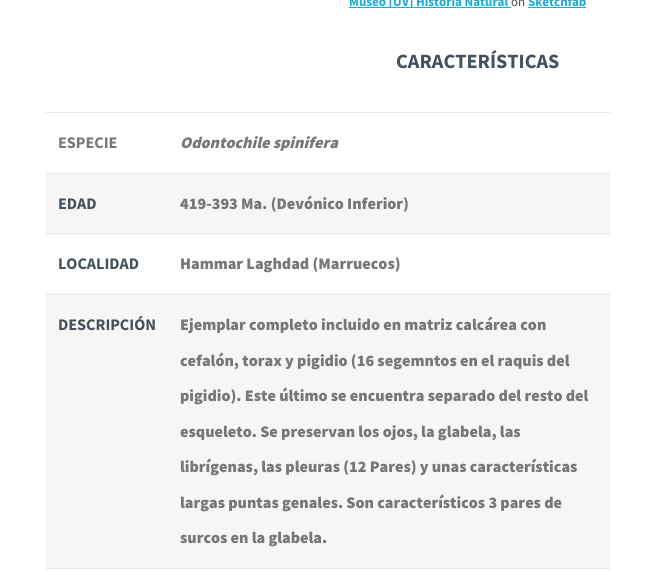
import math
import cairo

surface = cairo.ImageSurface(cairo.FORMAT_RGB24, 656, 571)
c = cairo.Context(surface)
options = cairo.FontOptions()
options.set_hint_metrics(cairo.HINT_METRICS_OFF)
options.set_hint_style(cairo.HINT_STYLE_NONE)
c.set_font_options(options)
c.set_miter_limit(4)
def C(code):
 c.set_source_rgb(*(v / 255 for v in bytes.fromhex(code[-6:])))
def F(family, size, italic, bold):
 c.select_font_face(family, cairo.FONT_SLANT_ITALIC if italic else cairo.FONT_SLANT_NORMAL, cairo.FONT_WEIGHT_BOLD if bold else cairo.FONT_WEIGHT_NORMAL)
 c.set_font_size(size)
def T(x, y, s):
 c.move_to(x, y)
 c.show_text(s)
def R(x, y, w, h):
 c.rectangle(x, y, w, h)
 c.fill()
C('ffffff')
c.paint()
C('1caad9')
R(349,7,162,1)
F('Source Sans Pro',13,0,1)
T(349,6,'Museo [UV] Historia Natural')
F('Source Sans Pro',13,0,0)
C('4a4a4a')
T(511,6,'on')
F('Source Sans Pro',13,0,1)
C('1caad9')
T(528,6,'Sketchfab')
R(528,7,58,1)
F('Source Sans Pro',20.25,0,1)
C('44505b')
T(396,68,'CARACTERÍSTICAS')
F('Source Sans Pro',16.15,0,1)
C('777777')
T(58,148,'ESPECIE')
C('e9e9e9')
R(46,112,564,1)
F('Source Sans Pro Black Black',16.15,1,0)
C('777777')
T(180,148,'Odontochile spinifera')
C('f6f6f6')
R(46,174,564,59)
F('Source Sans Pro',16.15,0,1)
C('44505b')
T(58,209,'EDAD')
C('e9e9e9')
R(46,173,564,1)
F('Source Sans Pro Black Black',16.15,0,0)
C('777777')
T(180,209,'419-393 Ma. (Devónico Inferior)')
F('Source Sans Pro',16.15,0,1)
C('44505b')
T(58,269,'LOCALIDAD')
C('e9e9e9')
R(46,233,564,1)
F('Source Sans Pro Black Black',16.15,0,0)
C('777777')
T(180,269,'Hammar Laghdad (Marruecos)')
C('f6f6f6')
R(46,295,564,273)
F('Source Sans Pro',16.15,0,1)
C('44505b')
T(58,330,'DESCRIPCIÓN')
C('e9e9e9')
R(46,294,564,1)
F('Source Sans Pro Black Black',16.15,0,0)
C('777777')
T(180,330,'Ejemplar completo incluido en matriz calcárea con')
T(180,366,'cefalón, torax y pigidio (16 segemntos en el raquis del')
T(180,401,'pigidio). Este último se encuentra separado del resto del')
T(180,437,'esqueleto. Se preservan los ojos, la glabela, las')
T(180,472,'librígenas, las pleuras (12 Pares) y unas características')
T(180,508,'largas puntas genales. Son característicos 3 pares de')
T(180,543,'surcos en la glabela.')
C('e9e9e9')
R(46,568,564,1)
surface.write_to_png('o.png')
